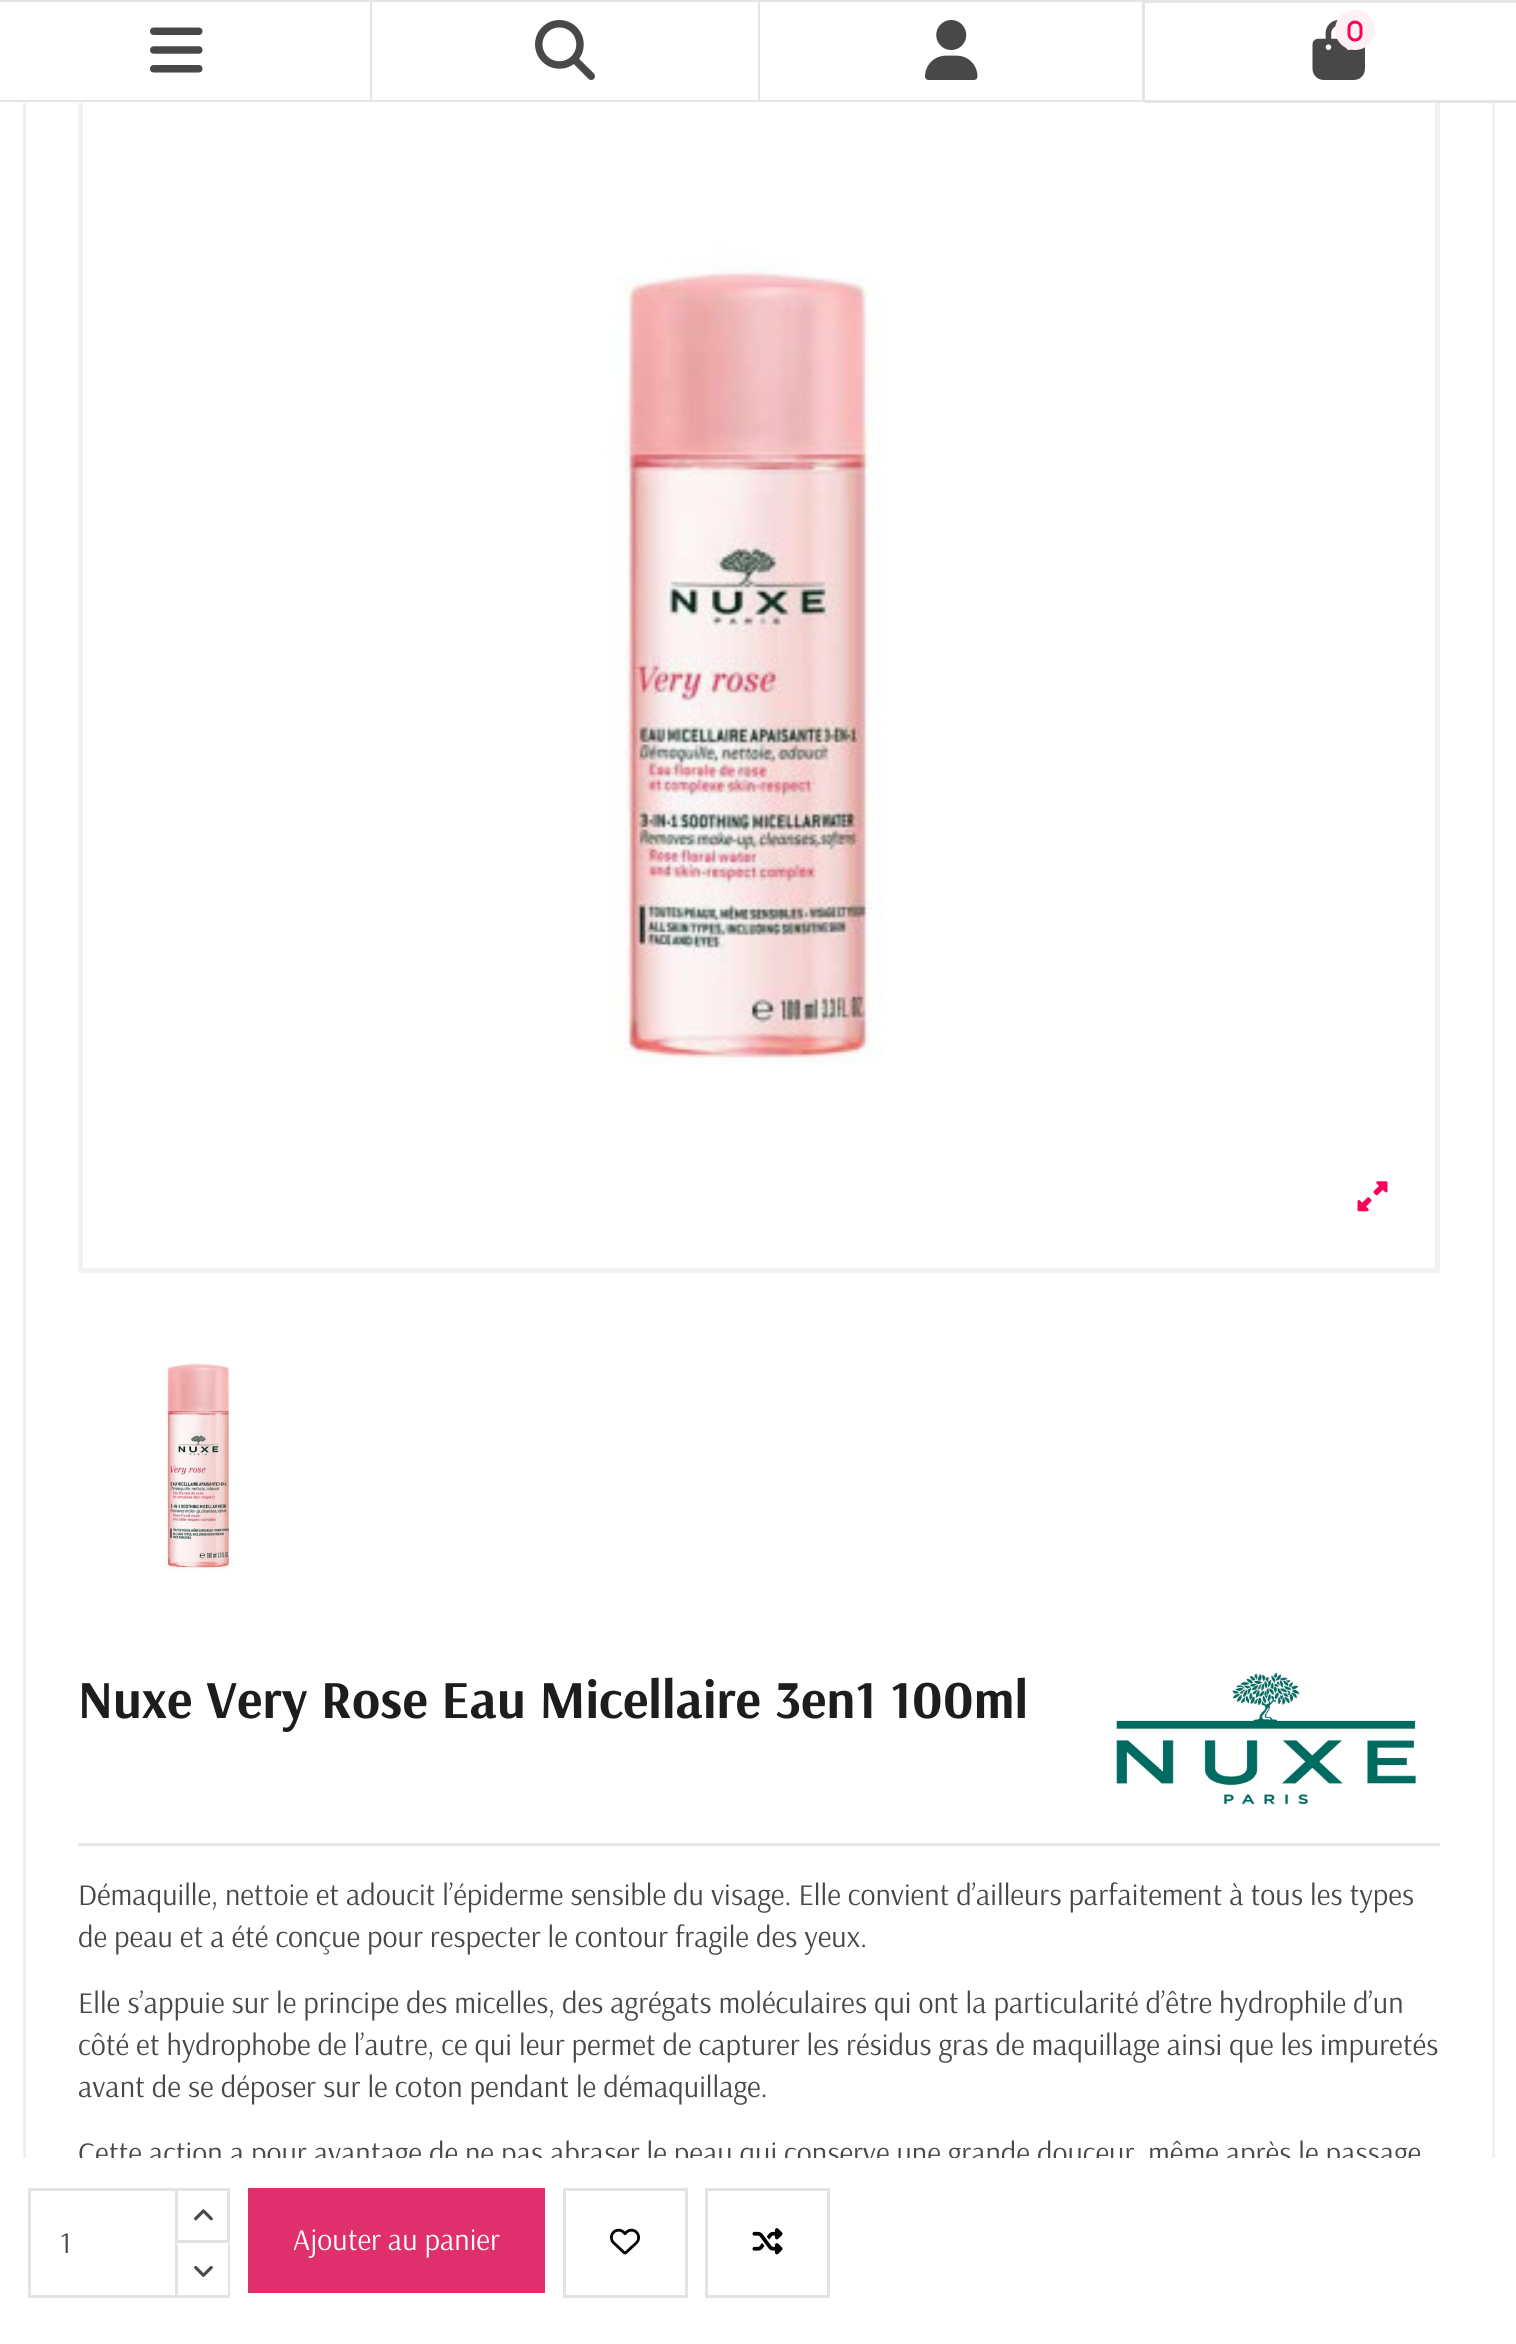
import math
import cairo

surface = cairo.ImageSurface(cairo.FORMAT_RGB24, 1516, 2344)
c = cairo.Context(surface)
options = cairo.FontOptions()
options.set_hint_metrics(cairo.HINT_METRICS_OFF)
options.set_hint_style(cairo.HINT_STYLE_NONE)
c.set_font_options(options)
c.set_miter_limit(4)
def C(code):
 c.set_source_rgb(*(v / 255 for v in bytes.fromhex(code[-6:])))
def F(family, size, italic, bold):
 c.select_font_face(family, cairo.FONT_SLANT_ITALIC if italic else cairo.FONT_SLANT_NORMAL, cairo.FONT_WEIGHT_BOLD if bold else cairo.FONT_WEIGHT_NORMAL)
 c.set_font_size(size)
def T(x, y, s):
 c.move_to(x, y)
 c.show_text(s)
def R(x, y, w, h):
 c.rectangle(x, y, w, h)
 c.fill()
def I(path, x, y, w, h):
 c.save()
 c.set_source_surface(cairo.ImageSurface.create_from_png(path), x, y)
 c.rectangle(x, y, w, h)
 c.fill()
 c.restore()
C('ffffff')
c.paint()
c.rectangle(24.5,-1.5,1469,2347)
C('f0f0f0')
c.set_line_width(3)
c.stroke()
c.rectangle(80.5,35.5,1357,1235)
C('f2f2f2')
c.set_line_width(5)
c.stroke()
C('ffffff')
R(23,0,1472,103)
C('e5e5e5')
c.new_path()
c.move_to(-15,0)
c.line_to(372,0)
c.line_to(370,2)
c.line_to(-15,2)
c.close_path()
c.fill()
c.set_source_rgba(0.082,0.082,0.082,0.11)
c.new_path()
c.move_to(372,0)
c.line_to(372,102)
c.line_to(370,100)
c.line_to(370,2)
c.close_path()
c.fill()
c.new_path()
c.move_to(372,102)
c.line_to(-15,102)
c.line_to(-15,100)
c.line_to(370,100)
c.close_path()
c.fill()
I('1.png',150,27,53,46)
C('e5e5e5')
c.new_path()
c.move_to(372,0)
c.line_to(760,0)
c.line_to(758,2)
c.line_to(372,2)
c.close_path()
c.fill()
c.set_source_rgba(0.082,0.082,0.082,0.11)
c.new_path()
c.move_to(760,0)
c.line_to(760,102)
c.line_to(758,100)
c.line_to(758,2)
c.close_path()
c.fill()
c.new_path()
c.move_to(760,102)
c.line_to(372,102)
c.line_to(372,100)
c.line_to(758,100)
c.close_path()
c.fill()
I('2.png',535,20,60,60)
C('e5e5e5')
c.new_path()
c.move_to(760,0)
c.line_to(1145,0)
c.line_to(1142,2)
c.line_to(760,2)
c.close_path()
c.fill()
c.set_source_rgba(0.082,0.082,0.082,0.11)
c.new_path()
c.move_to(1145,0)
c.line_to(1145,102)
c.line_to(1142,100)
c.line_to(1142,2)
c.close_path()
c.fill()
c.new_path()
c.move_to(1145,102)
c.line_to(760,102)
c.line_to(760,100)
c.line_to(1142,100)
c.close_path()
c.fill()
I('3.png',925,20,53,60)
C('e5e5e5')
R(1145,0,371,3)
R(1145,100,371,3)
I('5.png',1312,20,53,60)
C('fff0f5')
c.arc(1355,30,20,0,2 * math.pi)
c.fill()
I('4.png',1347,20,16,22)
I('6.png',283,103,952,962)
I('7.png',1357,1181,31,31)
I('8.png',164,1363,67,207)
C('e7e7e7')
R(78,1843,1362,3)
F('Arsenal',53.6,0,1)
C('1d1d1d')
T(78,1718,'Nuxe Very Rose Eau Micellaire 3en1 100ml')
I('9.png',1115,1672,302,133)
F('Arsenal',30,0,0)
C('484848')
T(78,1905,'Démaquille, nettoie et adoucit l’épiderme sensible du visage. Elle convient d’ailleurs parfaitement à tous les types')
T(78,1947,'de peau et a été conçue pour respecter le contour fragile des yeux.')
T(78,2013,'Elle s’appuie sur le principe des micelles, des agrégats moléculaires qui ont la particularité d’être hydrophile d’un')
T(78,2055,'côté et hydrophobe de l’autre, ce qui leur permet de capturer les résidus gras de maquillage ainsi que les impuretés')
T(78,2097,'avant de se déposer sur le coton pendant le démaquillage.')
T(78,2163,'Cette action a pour avantage de ne pas abraser le peau qui conserve une grande douceur, même après le passage')
C('ffffff')
R(23,2158,1472,186)
c.rectangle(29.5,2189.5,149,107)
C('e3e3e3')
c.set_line_width(3)
c.stroke()
C('484848')
T(60,2253,'1')
C('ffffff')
R(178,2191,2,49)
c.rectangle(176.5,2189.5,52,52)
C('e3e3e3')
c.stroke()
I('10.png',194,2209,19,12)
C('ffffff')
R(177,2243,3,52)
C('e3e3e3')
c.new_path()
c.move_to(230,2242)
c.line_to(230,2298)
c.line_to(228,2295)
c.line_to(228,2245)
c.close_path()
c.fill()
R(175,2295,55,3)
c.new_path()
c.move_to(175,2298)
c.line_to(175,2242)
c.line_to(178,2245)
c.line_to(178,2295)
c.close_path()
c.fill()
I('11.png',194,2266,19,11)
C('e02f6d')
R(248,2188,297,105)
C('ffffff')
T(293,2250,'Ajouter au panier')
c.rectangle(564.5,2189.5,122,107)
C('e3e3e3')
c.stroke()
I('12.png',610,2228,30,27)
c.rectangle(706.5,2189.5,122,107)
c.stroke()
I('13.png',752,2228,31,27)
surface.write_to_png('o.png')
